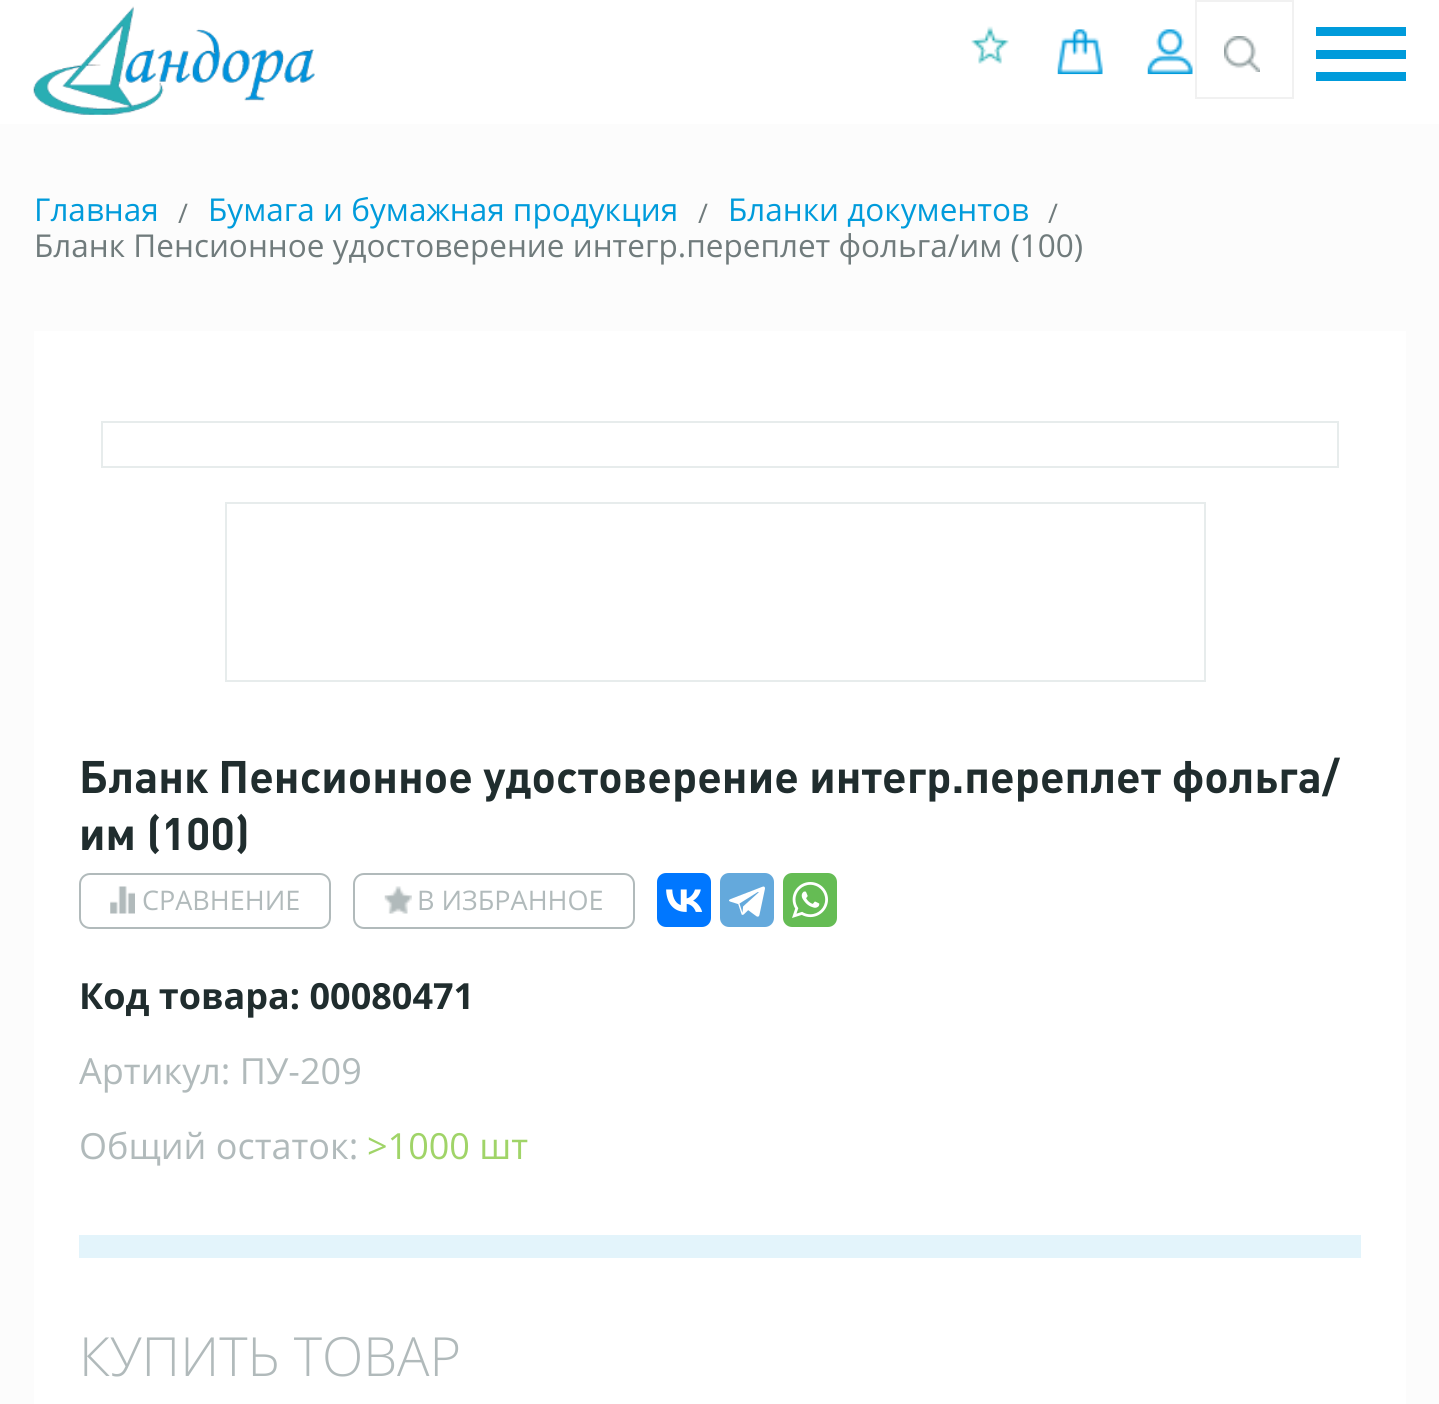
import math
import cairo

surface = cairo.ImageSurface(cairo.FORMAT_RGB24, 1439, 1404)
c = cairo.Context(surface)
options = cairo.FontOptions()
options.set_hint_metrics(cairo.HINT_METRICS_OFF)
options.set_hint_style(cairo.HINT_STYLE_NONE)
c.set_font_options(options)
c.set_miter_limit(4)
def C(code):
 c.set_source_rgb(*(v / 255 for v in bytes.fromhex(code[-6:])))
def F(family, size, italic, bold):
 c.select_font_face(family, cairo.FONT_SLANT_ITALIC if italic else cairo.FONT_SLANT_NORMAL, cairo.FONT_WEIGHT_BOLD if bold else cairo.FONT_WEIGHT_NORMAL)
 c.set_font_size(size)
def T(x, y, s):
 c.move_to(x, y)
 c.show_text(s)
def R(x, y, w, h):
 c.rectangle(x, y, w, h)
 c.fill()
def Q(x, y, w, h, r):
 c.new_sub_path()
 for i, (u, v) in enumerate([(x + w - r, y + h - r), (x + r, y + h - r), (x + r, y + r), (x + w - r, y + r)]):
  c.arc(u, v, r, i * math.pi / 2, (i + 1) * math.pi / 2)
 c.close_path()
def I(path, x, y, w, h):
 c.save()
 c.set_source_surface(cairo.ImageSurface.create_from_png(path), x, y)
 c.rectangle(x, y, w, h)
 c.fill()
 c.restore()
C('ffffff')
c.paint()
I('1.png',33,6,282,109)
I('2.png',971,26,38,38)
I('3.png',1057,29,46,46)
I('4.png',1147,29,46,46)
c.rectangle(1196,1,97,97)
C('f1f1f1')
c.stroke()
I('5.png',1224,36,36,36)
C('009bdb')
R(1316,27,90,9)
R(1316,50,90,9)
R(1316,72,90,9)
C('fcfcfc')
R(0,124,1439,1280)
F('Open Sans',31.5,0,0)
C('009bdb')
T(34,221,'Главная')
F('Open Sans',27,0,0)
C('707b7c')
T(178,223,'/')
F('Open Sans',31.5,0,0)
C('009bdb')
T(208,221,'Бумага и бумажная продукция')
F('Open Sans',27,0,0)
C('707b7c')
T(698,223,'/')
F('Open Sans',31.5,0,0)
C('009bdb')
T(728,221,'Бланки документов')
F('Open Sans',27,0,0)
C('707b7c')
T(1048,223,'/')
F('Open Sans',31.5,0,0)
T(34,257,'Бланк Пенсионное удостоверение интегр.переплет фольга/им (100)')
C('ffffff')
R(34,331,1372,1073)
c.rectangle(102,422,1236,45)
C('e7ecec')
c.stroke()
c.rectangle(226,503,979,178)
c.stroke()
F('DIN',45,0,1)
C('202d2e')
T(79,793,'Бланк Пенсионное удостоверение интегр.переплет фольга/')
T(79,850,'им (100)')
Q(80,874,250,54,10)
C('b1babb')
c.stroke()
I('6.png',110,886,25,28)
F('Open Sans',27,0,0)
T(142,910,'СРАВНЕНИЕ')
Q(354,874,280,54,10)
c.stroke()
I('7.png',384,886,28,28)
T(417,910,'В ИЗБРАННОЕ')
C('0077ff')
Q(657,873,54,54,9)
c.fill()
I('8.png',666,889,37,23)
C('64a9dc')
Q(720,873,54,54,9)
c.fill()
I('9.png',729,886,36,31)
C('65bc54')
Q(783,873,54,54,9)
c.fill()
I('10.png',792,882,36,36)
F('Open Sans',36,0,1)
C('202d2e')
T(79,1009,'Код товара: 00080471')
F('Open Sans',36,0,0)
C('b1babb')
T(79,1084,'Артикул: ПУ-209')
T(79,1159,'Общий остаток:')
C('a0d468')
T(367,1159,'>1000 шт')
C('e3f4fb')
R(79,1235,1282,23)
F('Open Sans Light',54,0,0)
C('b1babb')
T(79,1376,'КУПИТЬ ТОВАР')
surface.write_to_png('o.png')
